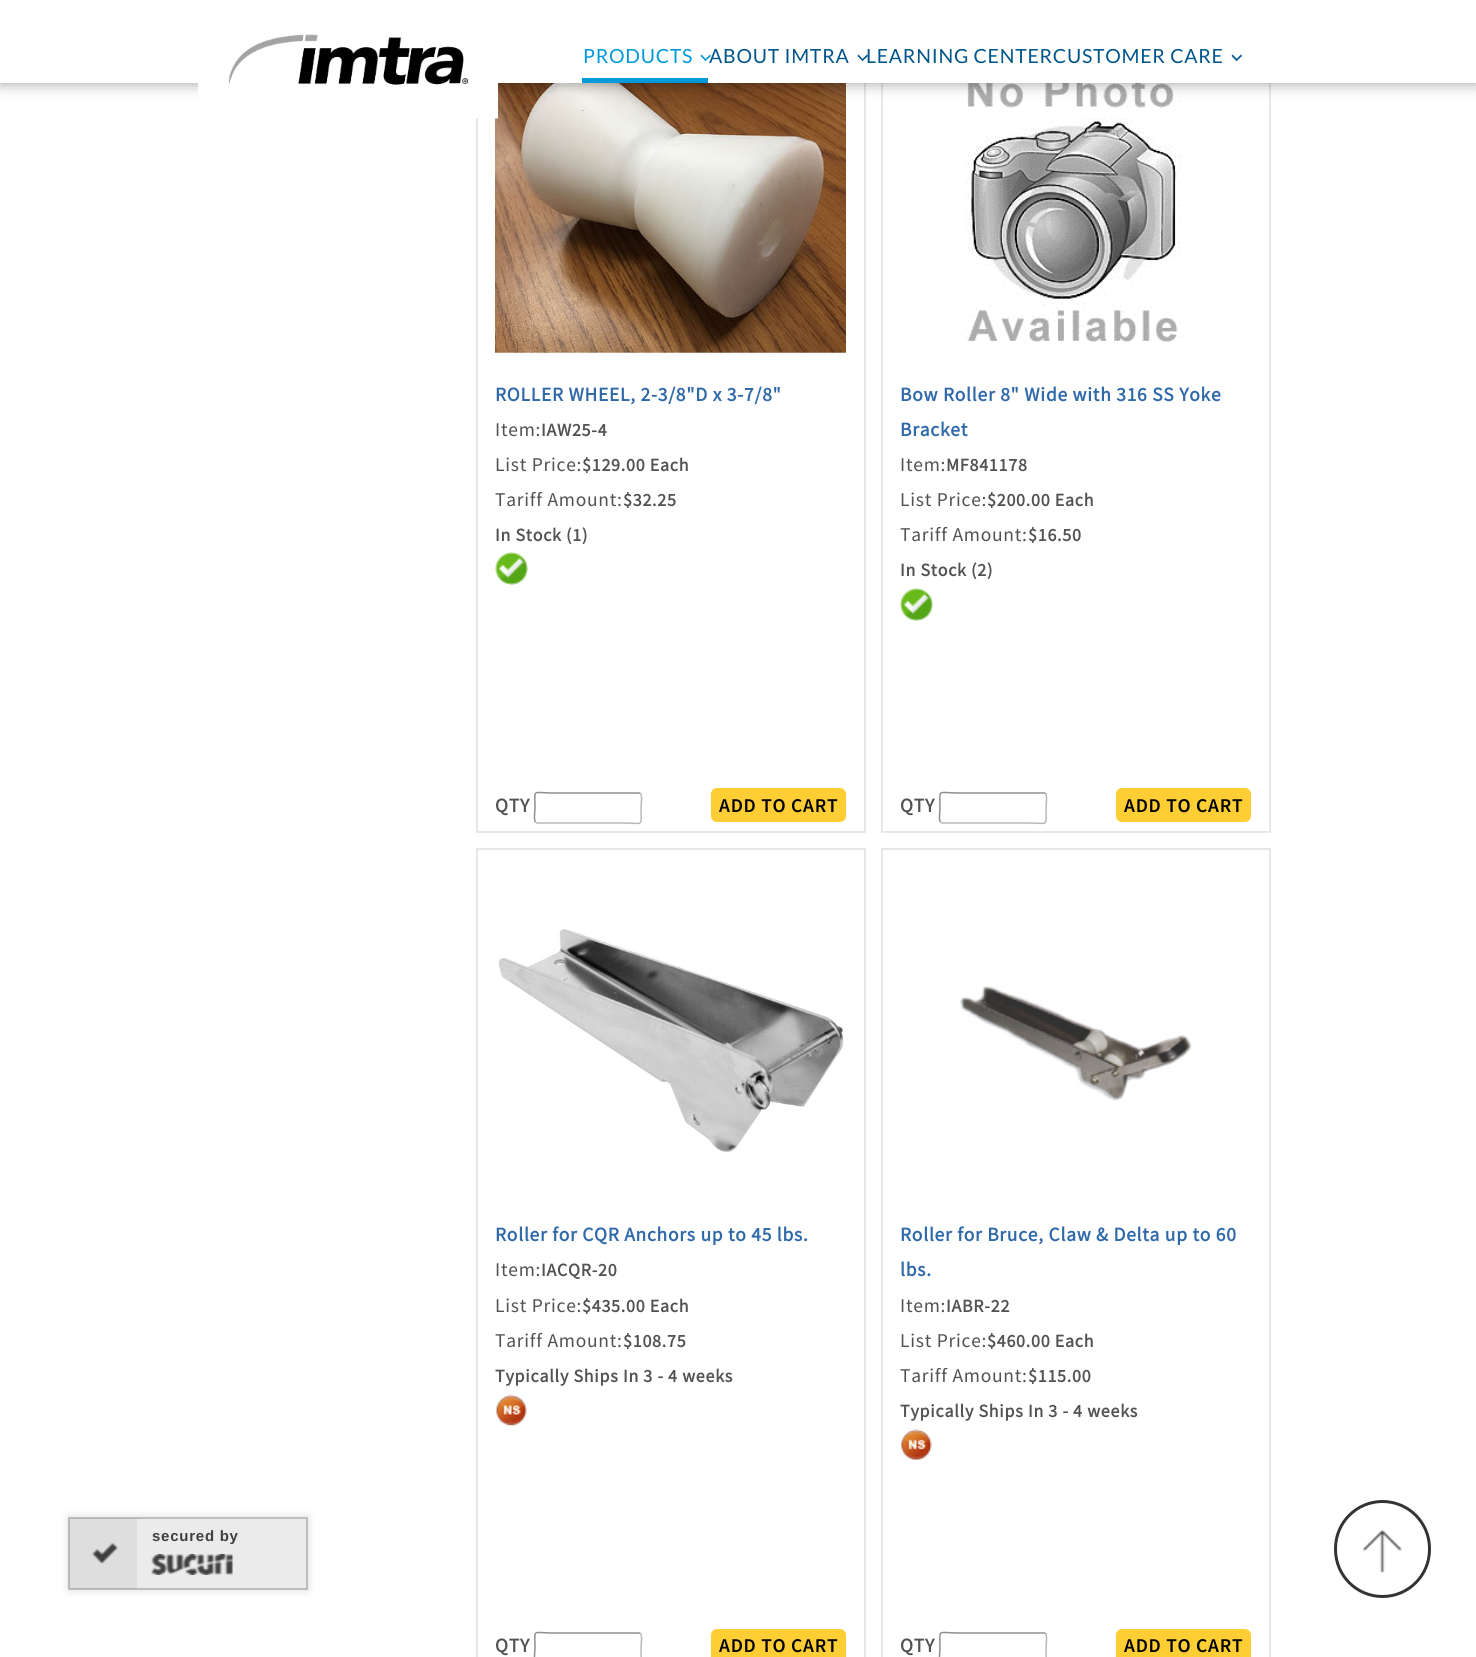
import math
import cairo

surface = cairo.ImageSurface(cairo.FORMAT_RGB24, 1476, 1657)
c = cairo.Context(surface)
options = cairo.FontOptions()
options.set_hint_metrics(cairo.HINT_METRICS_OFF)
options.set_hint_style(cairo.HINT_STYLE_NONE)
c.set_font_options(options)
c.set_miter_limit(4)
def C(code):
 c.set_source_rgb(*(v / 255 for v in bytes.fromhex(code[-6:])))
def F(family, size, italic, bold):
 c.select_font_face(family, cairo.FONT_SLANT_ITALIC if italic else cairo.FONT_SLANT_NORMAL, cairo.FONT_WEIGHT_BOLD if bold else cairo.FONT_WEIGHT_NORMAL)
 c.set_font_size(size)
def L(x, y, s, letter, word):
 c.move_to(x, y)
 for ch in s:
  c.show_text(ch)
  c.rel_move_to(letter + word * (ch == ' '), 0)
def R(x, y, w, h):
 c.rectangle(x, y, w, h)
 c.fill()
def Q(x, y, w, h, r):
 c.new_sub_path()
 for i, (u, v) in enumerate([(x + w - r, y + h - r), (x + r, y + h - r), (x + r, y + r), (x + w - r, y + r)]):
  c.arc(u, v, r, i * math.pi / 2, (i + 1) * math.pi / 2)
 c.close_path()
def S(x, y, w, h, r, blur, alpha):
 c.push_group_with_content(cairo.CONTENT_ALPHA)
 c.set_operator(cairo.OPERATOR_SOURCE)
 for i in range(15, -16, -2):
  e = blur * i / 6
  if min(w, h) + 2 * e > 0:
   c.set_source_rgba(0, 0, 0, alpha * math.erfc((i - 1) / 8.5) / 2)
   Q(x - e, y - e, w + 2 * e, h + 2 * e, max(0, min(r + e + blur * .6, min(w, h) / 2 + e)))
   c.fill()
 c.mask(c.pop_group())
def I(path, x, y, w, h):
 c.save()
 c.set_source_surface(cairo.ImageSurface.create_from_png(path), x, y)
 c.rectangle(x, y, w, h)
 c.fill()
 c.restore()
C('ffffff')
c.paint()
C('000000')
S(68,1517,240,73,0,4.5,.14)
C('ebebeb')
c.rectangle(69,1518,238,71)
c.fill_preserve()
C('bebebe')
c.stroke()
c.set_source_rgba(0.251,0.251,0.251,0.08)
R(69,1518,68,71)
I('1.png',92,1543,26,20)
F('Liberation Sans',15,0,1)
C('3f3f3f')
L(152,1541,'secured by',.75,0)
I('2.png',151,1554,82,21)
c.rectangle(477,7,388,825)
C('e7e7e7')
c.stroke()
I('4.png',495,83,351,270)
c.rectangle(882,7,388,825)
c.stroke()
I('6.png',965,83,216,259)
C('000000')
S(0,0,1476,83,0,7.5,.4)
C('ffffff')
R(0,0,1476,83)
I('3.png',198,34,300,85)
F('Lato',19.5,0,0)
C('009ada')
L(583,63,'PRODUCTS',.75,0)
c.new_path()
c.move_to(710,54.5)
c.line_to(711,56)
c.line_to(705.5,61)
c.line_to(704.5,60)
c.close_path()
c.fill()
c.new_path()
c.move_to(701.5,54.5)
c.line_to(706.5,60)
c.line_to(705.5,61)
c.line_to(700.5,56)
c.close_path()
c.fill()
C('00558b')
L(709,63,'ABOUT IMTRA',.75,0)
c.new_path()
c.move_to(867,54.5)
c.line_to(868,56)
c.line_to(862.5,61)
c.line_to(861.5,60)
c.close_path()
c.fill()
c.new_path()
c.move_to(858.5,54.5)
c.line_to(863.5,60)
c.line_to(862.5,61)
c.line_to(857.5,56)
c.close_path()
c.fill()
L(866,63,'LEARNING CENTERCUSTOMER CARE',.75,0)
c.new_path()
c.move_to(1241,54.5)
c.line_to(1242,56)
c.line_to(1236.5,61)
c.line_to(1235.5,60)
c.close_path()
c.fill()
c.new_path()
c.move_to(1232.5,54.5)
c.line_to(1238,60)
c.line_to(1236.5,61)
c.line_to(1231.5,56)
c.close_path()
c.fill()
C('009ada')
R(582,78,126,5)
F('Source Sans Pro',19.5,0,1)
C('2f69a9')
L(495,401,'ROLLER WHEEL, 2-3/8"D x 3-7/8"',.75,0)
F('Source Sans Pro',19.5,0,0)
C('525252')
L(495,436,'Item:',.75,0)
F('Source Sans Pro',18,0,1)
L(541,436,'IAW25-4',.75,0)
F('Source Sans Pro',19.5,0,0)
L(495,471,'List Price:',.75,0)
F('Source Sans Pro',18,0,1)
L(582,471,'$129.00 Each',.75,0)
F('Source Sans Pro',19.5,0,0)
L(495,506,'Tariff Amount:',.75,0)
F('Source Sans Pro',18,0,1)
L(623,506,'$32.25',.75,0)
L(495,541,'In Stock (1)',.75,0)
I('5.png',495,552,33,33)
F('Source Sans Pro',19.5,0,1)
L(495,812,'QTY',.75,0)
c.new_path()
c.move_to(640.5,793.5)
c.curve_to(642.5,795,641,805.5,641,808)
c.curve_to(641,827.5,644.5,823,622,823)
c.line_to(537,823)
c.line_to(535.5,822)
C('b8b8b8')
c.set_line_width(1.5)
c.stroke()
c.new_path()
c.move_to(535.5,822)
c.curve_to(533.5,820.5,535,810,535,808)
c.curve_to(535,788,531.5,793,554,793)
c.line_to(639,793)
c.line_to(640.5,793.5)
C('8e8e8e')
c.stroke()
C('ffce34')
Q(711,788,135,34,6)
c.fill()
F('Source Sans Pro SemiBold',19.5,0,0)
C('000000')
L(719,812,'ADD TO CART',.75,0)
F('Source Sans Pro',19.5,0,1)
C('2f69a9')
L(900,401,'Bow Roller 8" Wide with 316 SS Yoke',.75,0)
L(900,436,'Bracket',.75,0)
F('Source Sans Pro',19.5,0,0)
C('525252')
L(900,471,'Item:',.75,0)
F('Source Sans Pro',18,0,1)
L(946,471,'MF841178',.75,0)
F('Source Sans Pro',19.5,0,0)
L(900,506,'List Price:',.75,0)
F('Source Sans Pro',18,0,1)
L(987,506,'$200.00 Each',.75,0)
F('Source Sans Pro',19.5,0,0)
L(900,541,'Tariff Amount:',.75,0)
F('Source Sans Pro',18,0,1)
L(1028,541,'$16.50',.75,0)
L(900,576,'In Stock (2)',.75,0)
I('7.png',900,588,33,33)
F('Source Sans Pro',19.5,0,1)
L(900,812,'QTY',.75,0)
c.new_path()
c.move_to(1045.5,793.5)
c.curve_to(1047.5,795,1046,805.5,1046,808)
c.curve_to(1046,827.5,1049.5,823,1027,823)
c.line_to(942,823)
c.line_to(940.5,822)
C('b8b8b8')
c.stroke()
c.new_path()
c.move_to(940.5,822)
c.curve_to(938.5,820.5,940,810,940,808)
c.curve_to(940,788,936.5,793,959,793)
c.line_to(1044,793)
c.line_to(1045.5,793.5)
C('8e8e8e')
c.stroke()
C('ffce34')
Q(1116,788,135,34,6)
c.fill()
F('Source Sans Pro SemiBold',19.5,0,0)
C('000000')
L(1124,812,'ADD TO CART',.75,0)
c.rectangle(477,849,388,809)
C('e7e7e7')
c.set_line_width(2)
c.stroke()
I('8.png',498,929,346,223)
F('Source Sans Pro',19.5,0,1)
C('2f69a9')
L(495,1241,'Roller for CQR Anchors up to 45 lbs.',.75,0)
F('Source Sans Pro',19.5,0,0)
C('525252')
L(495,1276,'Item:',.75,0)
F('Source Sans Pro',18,0,1)
L(541,1276,'IACQR-20',.75,0)
F('Source Sans Pro',19.5,0,0)
L(495,1312,'List Price:',.75,0)
F('Source Sans Pro',18,0,1)
L(582,1312,'$435.00 Each',.75,0)
F('Source Sans Pro',19.5,0,0)
L(495,1347,'Tariff Amount:',.75,0)
F('Source Sans Pro',18,0,1)
L(623,1347,'$108.75',.75,0)
L(495,1382,'Typically Ships In 3 - 4 weeks',.75,0)
I('9.png',496,1394,31,32)
F('Source Sans Pro',19.5,0,1)
L(495,1652,'QTY',.75,0)
c.new_path()
c.move_to(640.5,1633.5)
c.curve_to(642.5,1635,641,1645.5,641,1648)
c.curve_to(641,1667.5,644.5,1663,622,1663)
c.line_to(537,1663)
c.line_to(535.5,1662)
C('b8b8b8')
c.set_line_width(1.5)
c.stroke()
c.new_path()
c.move_to(535.5,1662)
c.curve_to(533.5,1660.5,535,1650,535,1648)
c.curve_to(535,1628,531.5,1633,554,1633)
c.line_to(639,1633)
c.line_to(640.5,1633.5)
C('8e8e8e')
c.stroke()
C('ffce34')
Q(711,1629,135,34,6)
c.fill()
F('Source Sans Pro SemiBold',19.5,0,0)
C('000000')
L(719,1652,'ADD TO CART',.75,0)
c.rectangle(882,849,388,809)
C('e7e7e7')
c.set_line_width(2)
c.stroke()
I('10.png',959,986,233,115)
F('Source Sans Pro',19.5,0,1)
C('2f69a9')
L(900,1241,'Roller for Bruce, Claw & Delta up to 60',.75,0)
L(900,1276,'lbs.',.75,0)
F('Source Sans Pro',19.5,0,0)
C('525252')
L(900,1312,'Item:',.75,0)
F('Source Sans Pro',18,0,1)
L(946,1312,'IABR-22',.75,0)
F('Source Sans Pro',19.5,0,0)
L(900,1347,'List Price:',.75,0)
F('Source Sans Pro',18,0,1)
L(987,1347,'$460.00 Each',.75,0)
F('Source Sans Pro',19.5,0,0)
L(900,1382,'Tariff Amount:',.75,0)
F('Source Sans Pro',18,0,1)
L(1028,1382,'$115.00',.75,0)
L(900,1417,'Typically Ships In 3 - 4 weeks',.75,0)
I('11.png',901,1429,31,31)
F('Source Sans Pro',19.5,0,1)
L(900,1652,'QTY',.75,0)
c.new_path()
c.move_to(1045.5,1633.5)
c.curve_to(1047.5,1635,1046,1645.5,1046,1648)
c.curve_to(1046,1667.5,1049.5,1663,1027,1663)
c.line_to(942,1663)
c.line_to(940.5,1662)
C('b8b8b8')
c.set_line_width(1.5)
c.stroke()
c.new_path()
c.move_to(940.5,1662)
c.curve_to(938.5,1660.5,940,1650,940,1648)
c.curve_to(940,1628,936.5,1633,959,1633)
c.line_to(1044,1633)
c.line_to(1045.5,1633.5)
C('8e8e8e')
c.stroke()
C('ffce34')
Q(1116,1629,135,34,6)
c.fill()
F('Source Sans Pro SemiBold',19.5,0,0)
C('000000')
L(1124,1652,'ADD TO CART',.75,0)
I('12.png',1363,1530,39,43)
Q(1335.5,1501.5,94,95,47)
C('333333')
c.set_line_width(3)
c.stroke()
surface.write_to_png('o.png')
